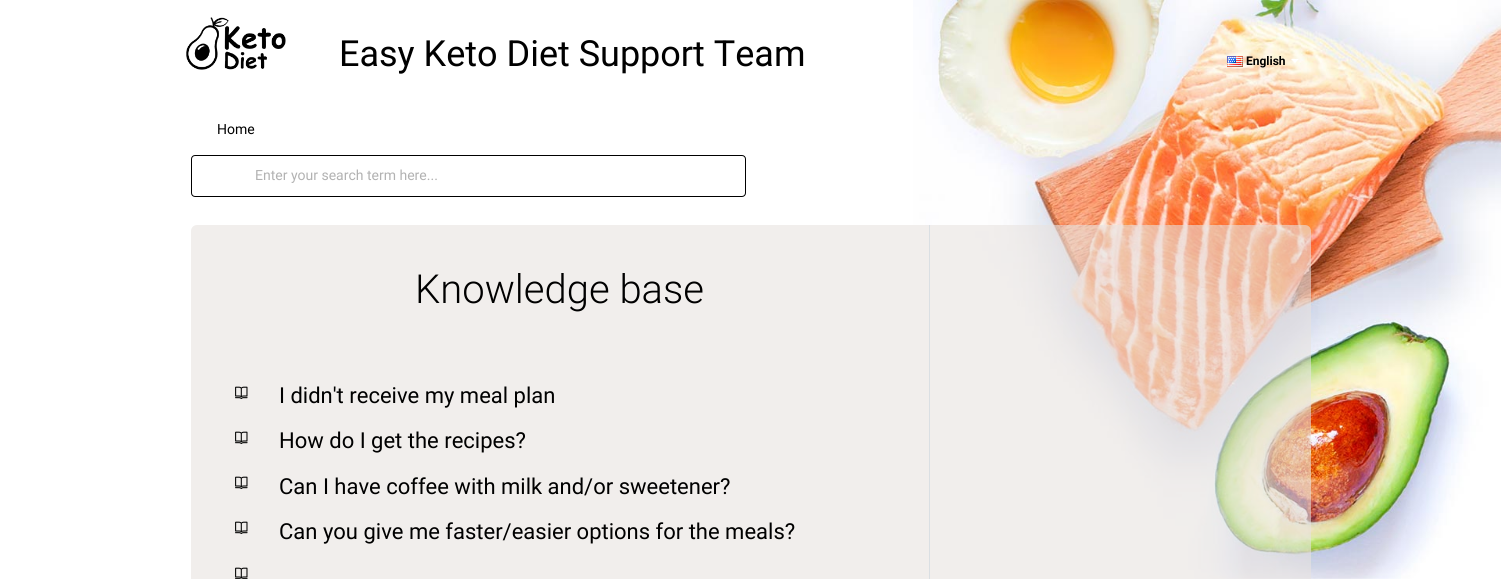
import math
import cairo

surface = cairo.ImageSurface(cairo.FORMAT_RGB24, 1501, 579)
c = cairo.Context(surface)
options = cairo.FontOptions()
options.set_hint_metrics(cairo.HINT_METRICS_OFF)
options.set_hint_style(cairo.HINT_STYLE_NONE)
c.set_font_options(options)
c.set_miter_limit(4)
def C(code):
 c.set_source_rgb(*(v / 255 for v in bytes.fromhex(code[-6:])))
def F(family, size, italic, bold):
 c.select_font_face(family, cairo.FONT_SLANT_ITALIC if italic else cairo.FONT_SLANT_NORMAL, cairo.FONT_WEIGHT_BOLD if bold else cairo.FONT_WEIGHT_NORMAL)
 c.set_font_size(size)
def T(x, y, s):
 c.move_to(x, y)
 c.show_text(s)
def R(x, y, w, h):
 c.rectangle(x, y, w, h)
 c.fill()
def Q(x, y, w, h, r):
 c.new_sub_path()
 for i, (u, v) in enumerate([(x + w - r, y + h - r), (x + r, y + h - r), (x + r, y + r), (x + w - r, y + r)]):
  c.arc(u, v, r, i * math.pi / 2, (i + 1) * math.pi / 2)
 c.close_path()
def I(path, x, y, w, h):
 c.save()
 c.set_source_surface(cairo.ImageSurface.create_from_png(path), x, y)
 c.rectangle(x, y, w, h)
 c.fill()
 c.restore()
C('ffffff')
c.paint()
I('1.png',913,0,588,579)
I('2.png',186,17,100,53)
F('Roboto',36,0,0)
C('000000')
T(339,66,'Easy Keto Diet Support Team')
I('3.png',1227,56,16,11)
F('Roboto',12,0,1)
T(1246,65,'English')
C('ffffff')
c.new_path()
c.move_to(1291,59)
c.line_to(1299,59)
c.line_to(1295,63)
c.close_path()
c.fill()
F('Roboto',14,0,0)
C('000000')
T(217,134,'Home')
Q(191.5,155.5,554,41,3.5)
c.set_line_width(1)
c.stroke()
C('b2b2b2')
T(255,180,'Enter your search term here...')
c.set_source_rgba(0.906,0.886,0.878,0.6)
Q(191,225,1120,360,6)
c.fill()
C('dadfe3')
R(929,225,1,354)
F('Roboto Light',40,0,0)
C('000000')
T(415,303,'Knowledge base')
I('4.png',235,386,13,13)
F('Roboto',22,0,0)
T(279,403,'I didn\'t receive my meal plan')
I('4.png',235,431,13,13)
T(279,448,'How do I get the recipes?')
I('4.png',235,476,13,13)
T(279,494,'Can I have coffee with milk and/or sweetener?')
I('4.png',235,521,13,13)
T(279,539,'Can you give me faster/easier options for the meals?')
I('5.png',235,567,13,12)
surface.write_to_png('o.png')
